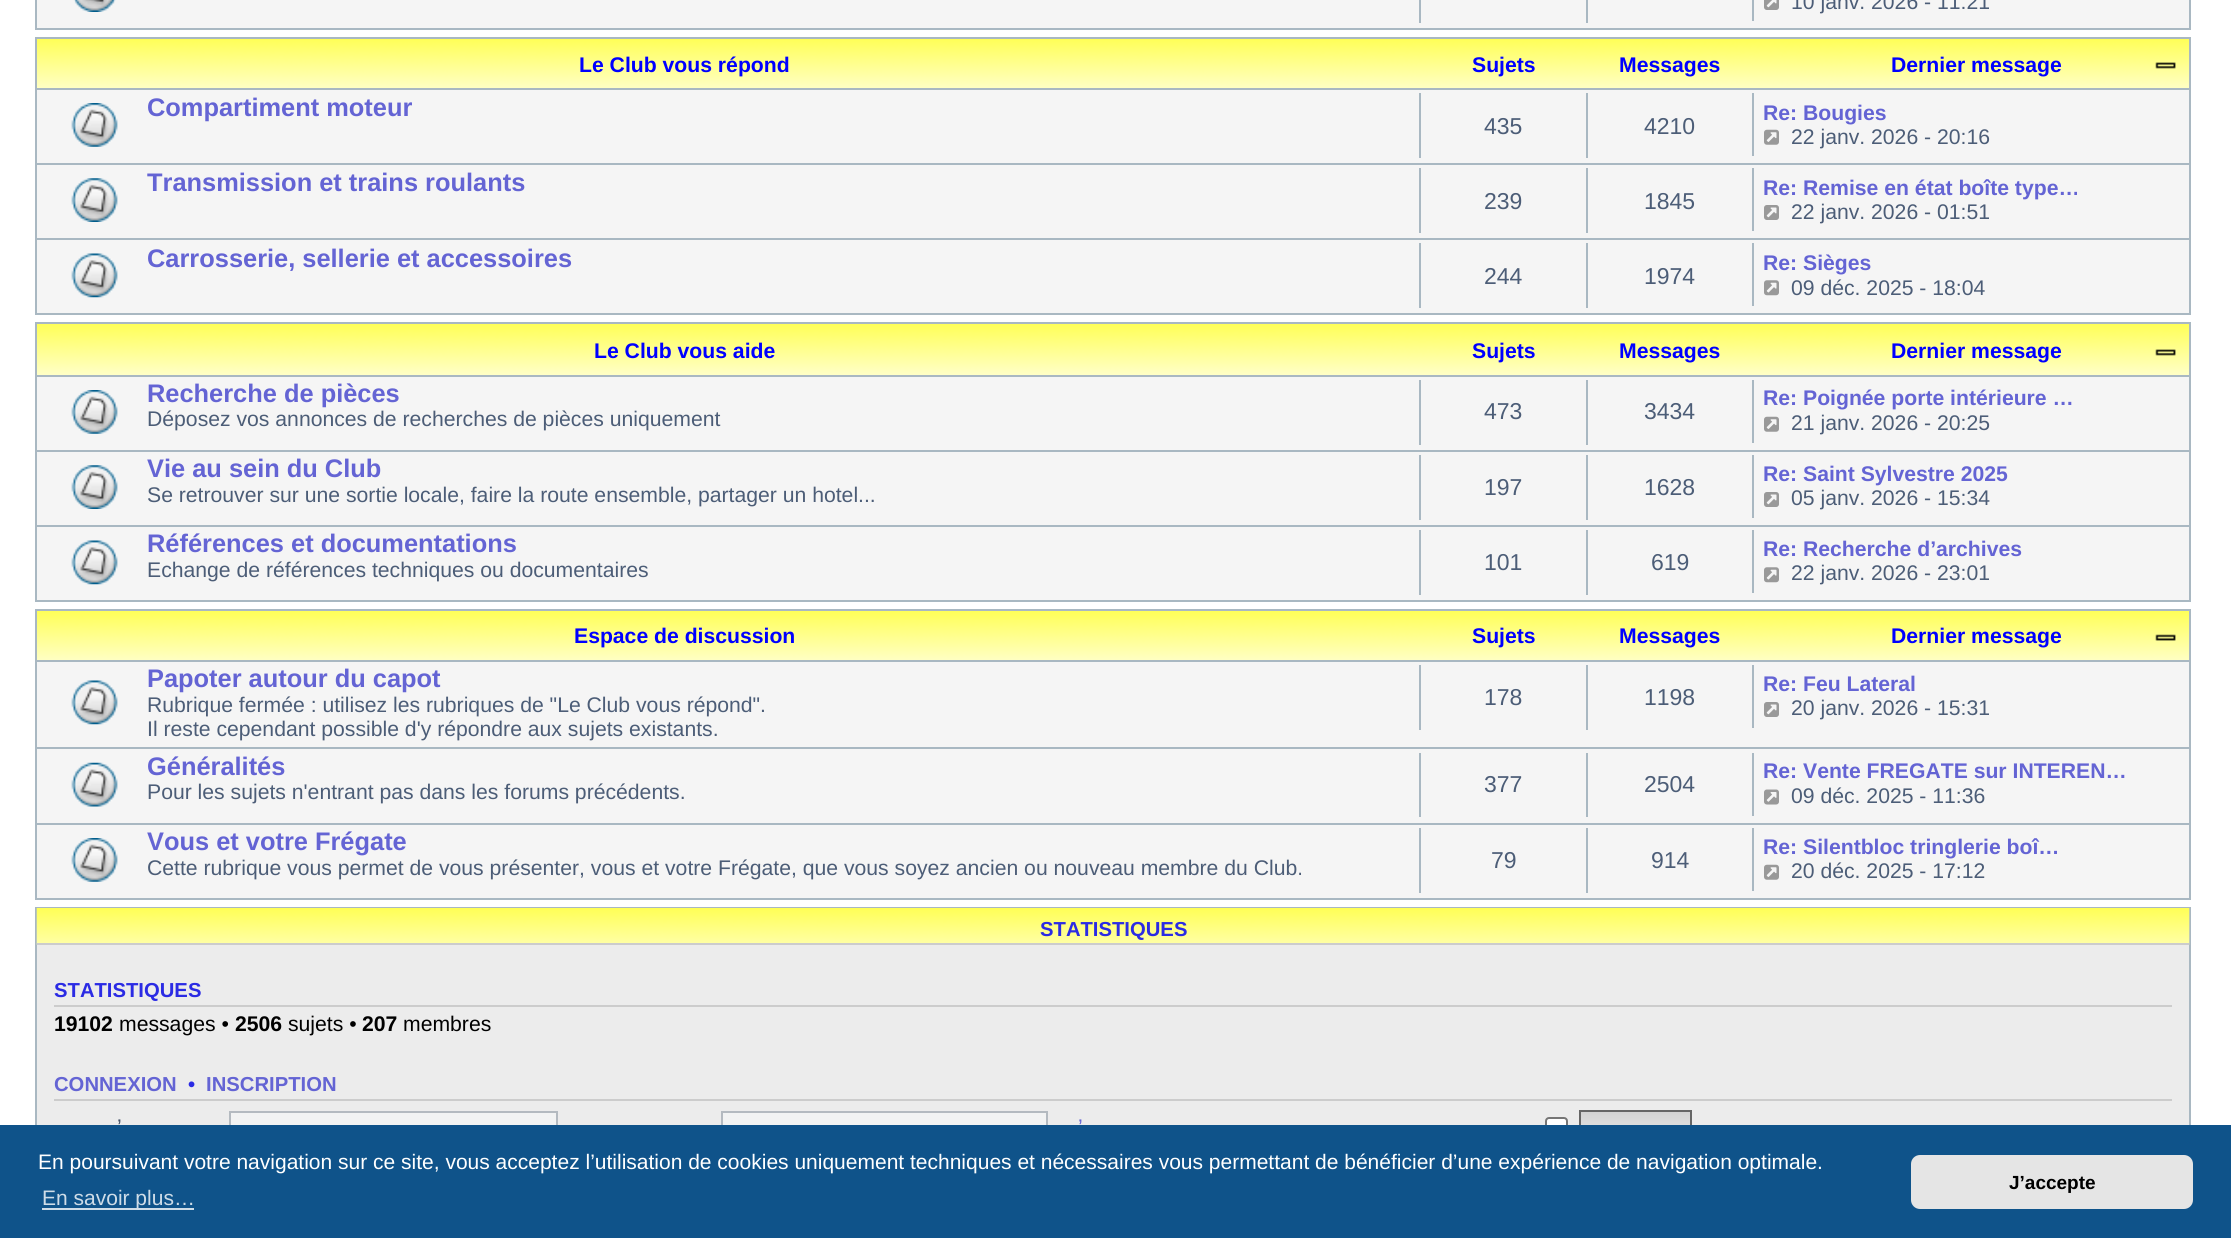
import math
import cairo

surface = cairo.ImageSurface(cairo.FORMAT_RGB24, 2231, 1238)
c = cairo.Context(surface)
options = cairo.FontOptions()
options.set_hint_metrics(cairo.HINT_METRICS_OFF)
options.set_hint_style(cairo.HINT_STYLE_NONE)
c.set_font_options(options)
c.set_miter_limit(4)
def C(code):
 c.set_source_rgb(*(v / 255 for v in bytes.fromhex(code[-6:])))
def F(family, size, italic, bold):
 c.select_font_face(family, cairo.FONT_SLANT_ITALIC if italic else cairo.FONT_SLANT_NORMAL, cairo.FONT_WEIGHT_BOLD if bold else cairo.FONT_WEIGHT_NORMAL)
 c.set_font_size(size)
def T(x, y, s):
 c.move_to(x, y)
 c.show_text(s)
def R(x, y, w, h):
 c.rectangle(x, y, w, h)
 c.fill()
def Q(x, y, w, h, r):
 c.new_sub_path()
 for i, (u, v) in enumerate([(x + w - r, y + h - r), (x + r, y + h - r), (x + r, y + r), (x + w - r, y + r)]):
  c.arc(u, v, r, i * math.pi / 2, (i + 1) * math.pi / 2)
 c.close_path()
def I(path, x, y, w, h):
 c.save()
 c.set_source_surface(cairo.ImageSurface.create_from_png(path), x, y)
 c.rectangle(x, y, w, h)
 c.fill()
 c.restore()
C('ffffff')
c.paint()
c.rectangle(36,-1,2154,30)
C('a9b8c2')
c.stroke()
C('f5f5f5')
R(37,0,2152,28)
I('1.png',73,0,43,12)
C('a9b8c2')
R(1419,0,2,23)
R(1586,0,2,23)
R(1752,0,2,21)
I('2.png',1764,0,15,10)
F('Liberation Sans',21.18,0,0)
C('4c5d77')
T(1791,9,'10 janv. 2026 - 11:21')
I('3.png',37,39,2152,49)
c.rectangle(36,38,2154,276)
C('a9b8c2')
c.stroke()
F('Liberation Sans',21.18,0,1)
C('0000ff')
T(579,72,'Le Club vous répond')
T(1472,72,'Sujets')
T(1619,72,'Messages')
T(1891,72,'Dernier message')
I('4.png',2155,62,21,7)
C('f5f5f5')
R(37,90,2152,223)
C('a9b8c2')
R(37,88,2152,2)
I('5.png',71,103,47,44)
F('Liberation Sans',25.4,0,1)
C('6464d4')
T(147,116,'Compartiment moteur')
C('a9b8c2')
R(1419,93,2,65)
F('Liberation Sans',23,0,0)
C('4c5d77')
T(1484,134,'435')
C('a9b8c2')
R(1586,93,2,65)
C('4c5d77')
T(1644,134,'4210')
C('a9b8c2')
R(1752,93,2,63)
F('Liberation Sans',21.18,0,1)
C('6464d4')
T(1763,120,'Re: Bougies')
I('6.png',1764,129,15,16)
F('Liberation Sans',21.18,0,0)
C('4c5d77')
T(1791,144,'22 janv. 2026 - 20:16')
C('a9b8c2')
R(37,163,2152,2)
I('7.png',71,178,47,44)
F('Liberation Sans',25.4,0,1)
C('6464d4')
T(147,191,'Transmission et trains roulants')
C('a9b8c2')
R(1419,168,2,65)
F('Liberation Sans',23,0,0)
C('4c5d77')
T(1484,209,'239')
C('a9b8c2')
R(1586,168,2,65)
C('4c5d77')
T(1644,209,'1845')
C('a9b8c2')
R(1752,168,2,63)
F('Liberation Sans',21.18,0,1)
C('6464d4')
T(1763,195,'Re: Remise en état boîte type…')
I('8.png',1764,205,15,15)
F('Liberation Sans',21.18,0,0)
C('4c5d77')
T(1791,219,'22 janv. 2026 - 01:51')
C('a9b8c2')
R(37,238,2152,2)
I('9.png',71,253,47,45)
F('Liberation Sans',25.4,0,1)
C('6464d4')
T(147,267,'Carrosserie, sellerie et accessoires')
C('a9b8c2')
R(1419,243,2,65)
F('Liberation Sans',23,0,0)
C('4c5d77')
T(1484,284,'244')
C('a9b8c2')
R(1586,243,2,65)
C('4c5d77')
T(1644,284,'1974')
C('a9b8c2')
R(1752,243,2,63)
F('Liberation Sans',21.18,0,1)
C('6464d4')
T(1763,270,'Re: Sièges')
I('10.png',1764,280,15,16)
F('Liberation Sans',21.18,0,0)
C('4c5d77')
T(1791,295,'09 déc. 2025 - 18:04')
I('11.png',37,324,2152,51)
c.rectangle(36,323,2154,278)
C('a9b8c2')
c.stroke()
F('Liberation Sans',21.18,0,1)
C('0000ff')
T(594,358,'Le Club vous aide')
T(1472,358,'Sujets')
T(1619,358,'Messages')
T(1891,358,'Dernier message')
I('12.png',2155,349,21,7)
C('f5f5f5')
R(37,377,2152,223)
C('a9b8c2')
R(37,375,2152,2)
I('5.png',71,390,47,44)
F('Liberation Sans',25.4,0,1)
C('6464d4')
T(147,402,'Recherche de pièces')
F('Liberation Sans',21.18,0,0)
C('4c5d77')
T(147,426,'Déposez vos annonces de recherches de pièces uniquement')
C('a9b8c2')
R(1419,380,2,65)
F('Liberation Sans',23,0,0)
C('4c5d77')
T(1484,419,'473')
C('a9b8c2')
R(1586,380,2,65)
C('4c5d77')
T(1644,419,'3434')
C('a9b8c2')
R(1752,380,2,63)
F('Liberation Sans',21.18,0,1)
C('6464d4')
T(1763,405,'Re: Poignée porte intérieure …')
I('6.png',1764,416,15,16)
F('Liberation Sans',21.18,0,0)
C('4c5d77')
T(1791,430,'21 janv. 2026 - 20:25')
C('a9b8c2')
R(37,450,2152,2)
I('7.png',71,465,47,44)
F('Liberation Sans',25.4,0,1)
C('6464d4')
T(147,477,'Vie au sein du Club')
F('Liberation Sans',21.18,0,0)
C('4c5d77')
T(147,502,'Se retrouver sur une sortie locale, faire la route ensemble, partager un hotel...')
C('a9b8c2')
R(1419,455,2,65)
F('Liberation Sans',23,0,0)
C('4c5d77')
T(1484,495,'197')
C('a9b8c2')
R(1586,455,2,65)
C('4c5d77')
T(1644,495,'1628')
C('a9b8c2')
R(1752,455,2,63)
F('Liberation Sans',21.18,0,1)
C('6464d4')
T(1763,481,'Re: Saint Sylvestre 2025')
I('8.png',1764,492,15,15)
F('Liberation Sans',21.18,0,0)
C('4c5d77')
T(1791,505,'05 janv. 2026 - 15:34')
C('a9b8c2')
R(37,525,2152,2)
I('9.png',71,540,47,45)
F('Liberation Sans',25.4,0,1)
C('6464d4')
T(147,552,'Références et documentations')
F('Liberation Sans',21.18,0,0)
C('4c5d77')
T(147,577,'Echange de références techniques ou documentaires')
C('a9b8c2')
R(1419,530,2,65)
F('Liberation Sans',23,0,0)
C('4c5d77')
T(1484,570,'101')
C('a9b8c2')
R(1586,530,2,65)
C('4c5d77')
T(1651,570,'619')
C('a9b8c2')
R(1752,530,2,63)
F('Liberation Sans',21.18,0,1)
C('6464d4')
T(1763,556,'Re: Recherche d’archives')
I('10.png',1764,567,15,16)
F('Liberation Sans',21.18,0,0)
C('4c5d77')
T(1791,580,'22 janv. 2026 - 23:01')
I('13.png',37,611,2152,49)
c.rectangle(36,610,2154,289)
C('a9b8c2')
c.stroke()
F('Liberation Sans',21.18,0,1)
C('0000ff')
T(574,643,'Espace de discussion')
T(1472,643,'Sujets')
T(1619,643,'Messages')
T(1891,643,'Dernier message')
I('14.png',2155,634,21,7)
C('f5f5f5')
R(37,662,2152,236)
C('a9b8c2')
R(37,660,2152,2)
I('9.png',71,680,47,45)
F('Liberation Sans',25.4,0,1)
C('6464d4')
T(147,687,'Papoter autour du capot')
F('Liberation Sans',21.18,0,0)
C('4c5d77')
T(147,712,'Rubrique fermée : utilisez les rubriques de "Le Club vous répond".')
T(147,736,'Il reste cependant possible d\'y répondre aux sujets existants.')
C('a9b8c2')
R(1419,665,2,65)
F('Liberation Sans',23,0,0)
C('4c5d77')
T(1484,705,'178')
C('a9b8c2')
R(1586,665,2,65)
C('4c5d77')
T(1644,705,'1198')
C('a9b8c2')
R(1752,665,2,63)
F('Liberation Sans',21.18,0,1)
C('6464d4')
T(1763,691,'Re: Feu Lateral')
I('8.png',1764,702,15,15)
F('Liberation Sans',21.18,0,0)
C('4c5d77')
T(1791,715,'20 janv. 2026 - 15:31')
C('a9b8c2')
R(37,747,2152,2)
I('15.png',71,762,47,45)
F('Liberation Sans',25.4,0,1)
C('6464d4')
T(147,775,'Généralités')
F('Liberation Sans',21.18,0,0)
C('4c5d77')
T(147,799,'Pour les sujets n\'entrant pas dans les forums précédents.')
C('a9b8c2')
R(1419,753,2,64)
F('Liberation Sans',23,0,0)
C('4c5d77')
T(1484,792,'377')
C('a9b8c2')
R(1586,753,2,64)
C('4c5d77')
T(1644,792,'2504')
C('a9b8c2')
R(1752,753,2,63)
F('Liberation Sans',21.18,0,1)
C('6464d4')
T(1763,778,'Re: Vente FREGATE sur INTEREN…')
I('16.png',1764,789,15,16)
F('Liberation Sans',21.18,0,0)
C('4c5d77')
T(1791,803,'09 déc. 2025 - 11:36')
C('a9b8c2')
R(37,823,2152,2)
I('5.png',71,838,47,44)
F('Liberation Sans',25.4,0,1)
C('6464d4')
T(147,850,'Vous et votre Frégate')
F('Liberation Sans',21.18,0,0)
C('4c5d77')
T(147,875,'Cette rubrique vous permet de vous présenter, vous et votre Frégate, que vous soyez ancien ou nouveau membre du Club.')
C('a9b8c2')
R(1419,828,2,65)
F('Liberation Sans',23,0,0)
C('4c5d77')
T(1491,868,'79')
C('a9b8c2')
R(1586,828,2,65)
C('4c5d77')
T(1651,868,'914')
C('a9b8c2')
R(1752,828,2,63)
F('Liberation Sans',21.18,0,1)
C('6464d4')
T(1763,854,'Re: Silentbloc tringlerie boî…')
I('6.png',1764,864,15,16)
F('Liberation Sans',21.18,0,0)
C('4c5d77')
T(1791,878,'20 déc. 2025 - 17:12')
C('ececec')
R(37,945,2152,180)
c.rectangle(36,908,2154,250)
C('a9b8c2')
c.stroke()
I('17.png',36,908,2154,37)
C('cccccc')
R(37,943,2152,2)
F('Liberation Sans',20.25,0,1)
C('2b2be4')
T(1040,936,'STATISTIQUES')
C('cccccc')
R(54,1005,2118,2)
C('2b2be4')
T(54,997,'STATISTIQUES')
F('Liberation Sans',21.18,0,1)
C('000000')
T(54,1031,'19102')
F('Liberation Sans',21.18,0,0)
T(119,1031,'messages •')
F('Liberation Sans',21.18,0,1)
T(235,1031,'2506')
F('Liberation Sans',21.18,0,0)
T(288,1031,'sujets •')
F('Liberation Sans',21.18,0,1)
T(362,1031,'207')
F('Liberation Sans',21.18,0,0)
T(403,1031,'membres')
C('cccccc')
R(54,1099,2118,2)
F('Liberation Sans',20.25,0,1)
C('6464d4')
T(54,1091,'CONNEXION')
C('2b2be4')
T(188,1091,'•')
C('6464d4')
T(206,1091,'INSCRIPTION')
F('Liberation Sans',21.18,0,0)
C('425067')
T(117,1134,'’')
C('f2f3f3')
R(231,1113,325,12)
c.rectangle(230,1112,327,33)
C('b4bac0')
c.stroke()
C('f2f3f3')
R(723,1113,323,12)
c.rectangle(722,1112,325,33)
C('b4bac0')
c.stroke()
C('6464d4')
T(1078,1134,'’')
C('ffffff')
Q(1546,1118,21,20,3)
c.fill_preserve()
C('767676')
c.stroke()
gradient = cairo.LinearGradient(1635,1111,1635,1146)
gradient.add_color_stop_rgba(0,0.824,0.824,0.824,1)
gradient.add_color_stop_rgba(1,0.937,0.937,0.937,1)
c.set_source(gradient)
R(1581,1112,109,13)
c.rectangle(1580,1111,111,36)
C('666666')
c.stroke()
C('0f538a')
R(0,1125,2231,113)
F('Liberation Sans',21,0,0)
C('ffffff')
T(38,1169,'En poursuivant votre navigation sur ce site, vous acceptez l’utilisation de cookies uniquement techniques et nécessaires vous permettant de bénéficier d’une expérience de navigation optimale.')
C('cfdde8')
R(42,1208,152,2)
T(42,1205,'En savoir plus…')
C('e5e5e5')
Q(1911,1155,282,54,9)
c.fill()
F('Liberation Sans',19,0,1)
C('000000')
T(2009,1189,'J’accepte')
surface.write_to_png('o.png')
